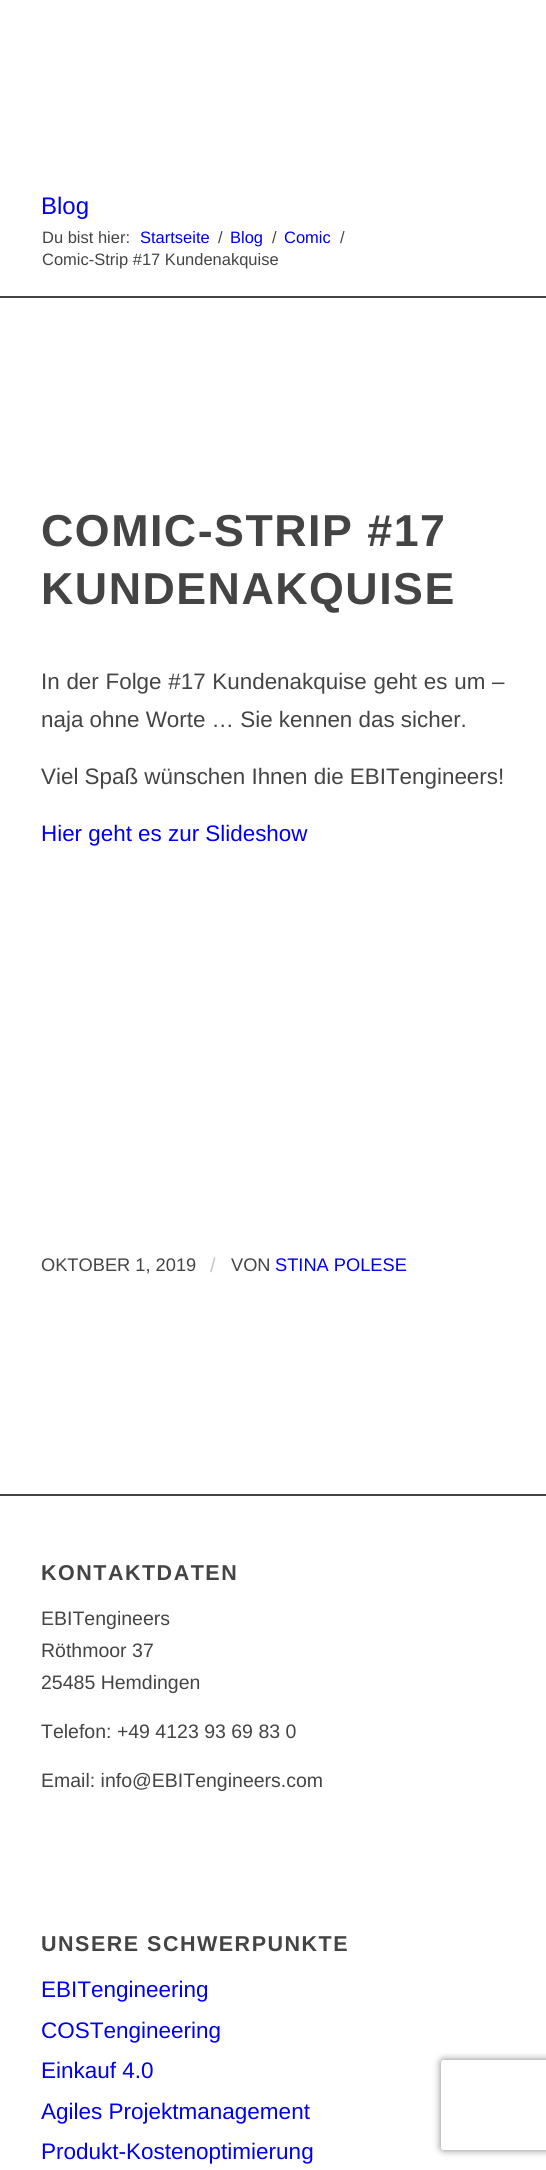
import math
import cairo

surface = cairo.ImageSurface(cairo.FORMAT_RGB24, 546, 2170)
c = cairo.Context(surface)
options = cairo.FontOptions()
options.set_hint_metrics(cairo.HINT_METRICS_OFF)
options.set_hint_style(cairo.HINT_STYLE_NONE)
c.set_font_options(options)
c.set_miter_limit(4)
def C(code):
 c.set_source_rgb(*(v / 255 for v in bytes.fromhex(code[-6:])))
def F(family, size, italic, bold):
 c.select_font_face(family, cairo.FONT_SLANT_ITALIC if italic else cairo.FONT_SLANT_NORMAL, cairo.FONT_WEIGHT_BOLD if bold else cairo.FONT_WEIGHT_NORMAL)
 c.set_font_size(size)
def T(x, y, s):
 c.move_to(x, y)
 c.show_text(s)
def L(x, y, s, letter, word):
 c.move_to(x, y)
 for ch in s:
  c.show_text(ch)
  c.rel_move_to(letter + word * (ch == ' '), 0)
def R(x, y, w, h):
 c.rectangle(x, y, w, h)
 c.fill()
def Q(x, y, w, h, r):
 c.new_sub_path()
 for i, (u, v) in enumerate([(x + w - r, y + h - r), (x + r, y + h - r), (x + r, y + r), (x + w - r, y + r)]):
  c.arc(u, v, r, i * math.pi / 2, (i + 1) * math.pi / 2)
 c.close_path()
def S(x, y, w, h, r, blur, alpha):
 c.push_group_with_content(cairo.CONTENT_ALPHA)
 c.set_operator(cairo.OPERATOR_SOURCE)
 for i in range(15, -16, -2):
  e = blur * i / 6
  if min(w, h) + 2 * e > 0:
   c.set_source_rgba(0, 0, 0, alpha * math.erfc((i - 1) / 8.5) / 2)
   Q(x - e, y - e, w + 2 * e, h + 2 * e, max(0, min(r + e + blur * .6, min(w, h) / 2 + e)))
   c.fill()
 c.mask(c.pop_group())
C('ffffff')
c.paint()
F('Liberation Sans',24,0,0)
C('0000ee')
T(41,214,'Blog')
F('Liberation Sans',16.5,0,0)
C('444444')
T(42,243,'Du bist hier:')
C('0000ee')
T(140,243,'Startseite')
C('444444')
T(218,243,'/')
C('0000ee')
T(230,243,'Blog')
C('444444')
T(272,243,'/')
C('0000ee')
T(284,243,'Comic')
C('444444')
T(340,243,'/')
T(42,265,'Comic-Strip #17 Kundenakquise')
R(0,296,546,2)
F('Liberation Sans',44.75,0,1)
L(41,546,'COMIC-STRIP #17',1.5,0)
L(41,604,'KUNDENAKQUISE',1.5,0)
F('Liberation Sans',22.4,0,0)
L(41,689,'In der Folge #17 Kundenakquise geht es um –',0,.5)
T(41,727,'naja ohne Worte … Sie kennen das sicher.')
T(41,784,'Viel Spaß wünschen Ihnen die EBITengineers!')
C('0000ee')
T(41,841,'Hier geht es zur Slideshow')
F('Liberation Sans',18.25,0,0)
C('444444')
T(41,1271,'OKTOBER 1, 2019')
F('Liberation Sans',20,0,0)
C('c7c7c7')
T(210,1272,'/')
F('Liberation Sans',18.25,0,0)
C('444444')
T(231,1271,'VON')
C('0000ee')
T(275,1271,'STINA POLESE')
C('444444')
R(0,1494,546,2)
F('Liberation Sans',21.5,0,1)
L(41,1580,'KONTAKTDATEN',1.5,0)
F('Liberation Sans',19.5,0,0)
T(41,1625,'EBITengineers')
T(41,1657,'Röthmoor 37')
T(41,1689,'25485 Hemdingen')
T(41,1738,'Telefon: +49 4123 93 69 83 0')
T(41,1787,'Email: info@EBITengineers.com')
F('Liberation Sans',21.5,0,1)
L(41,1951,'UNSERE SCHWERPUNKTE',1.5,0)
F('Liberation Sans',22.5,0,0)
C('0000ee')
T(41,1997,'EBITengineering')
T(41,2038,'COSTengineering')
T(41,2078,'Einkauf 4.0')
T(41,2119,'Agiles Projektmanagement')
T(41,2159,'Produkt-Kostenoptimierung')
c.save()
c.set_fill_rule(cairo.FILL_RULE_EVEN_ODD)
c.new_path()
c.move_to(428,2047)
c.line_to(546,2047)
c.line_to(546,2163)
c.line_to(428,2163)
c.close_path()
c.move_to(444,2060)
c.line_to(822,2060)
c.curve_to(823.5,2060,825,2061.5,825,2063)
c.line_to(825,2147)
c.curve_to(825,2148.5,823.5,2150,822,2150)
c.line_to(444,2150)
c.curve_to(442.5,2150,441,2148.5,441,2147)
c.line_to(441,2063)
c.curve_to(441,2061.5,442.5,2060,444,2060)
c.close_path()
c.clip()
C('808080')
S(441,2060,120,90,3,4,1)
c.restore()
surface.write_to_png('o.png')
